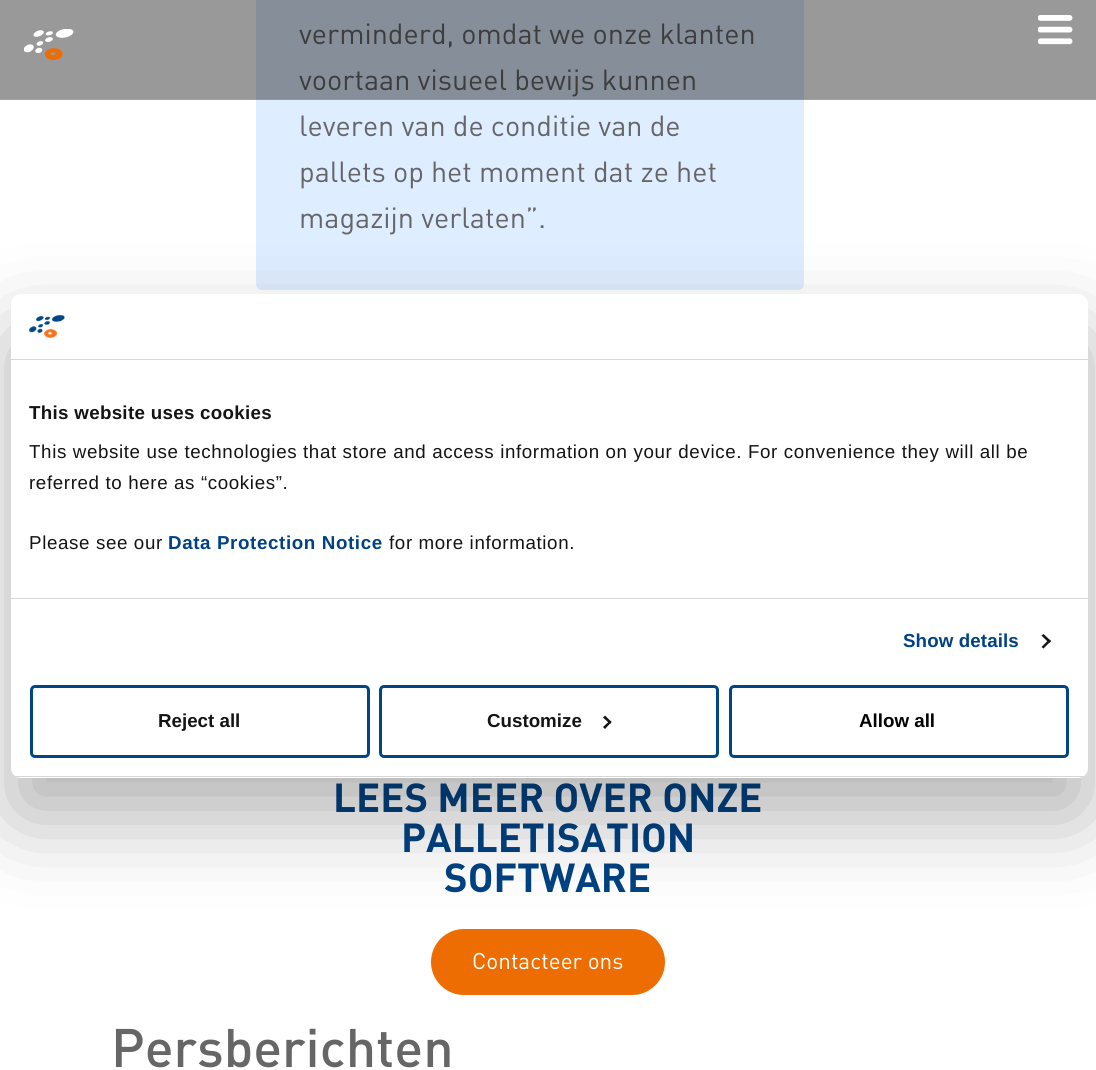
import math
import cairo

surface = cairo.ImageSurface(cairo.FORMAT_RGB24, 1096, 1070)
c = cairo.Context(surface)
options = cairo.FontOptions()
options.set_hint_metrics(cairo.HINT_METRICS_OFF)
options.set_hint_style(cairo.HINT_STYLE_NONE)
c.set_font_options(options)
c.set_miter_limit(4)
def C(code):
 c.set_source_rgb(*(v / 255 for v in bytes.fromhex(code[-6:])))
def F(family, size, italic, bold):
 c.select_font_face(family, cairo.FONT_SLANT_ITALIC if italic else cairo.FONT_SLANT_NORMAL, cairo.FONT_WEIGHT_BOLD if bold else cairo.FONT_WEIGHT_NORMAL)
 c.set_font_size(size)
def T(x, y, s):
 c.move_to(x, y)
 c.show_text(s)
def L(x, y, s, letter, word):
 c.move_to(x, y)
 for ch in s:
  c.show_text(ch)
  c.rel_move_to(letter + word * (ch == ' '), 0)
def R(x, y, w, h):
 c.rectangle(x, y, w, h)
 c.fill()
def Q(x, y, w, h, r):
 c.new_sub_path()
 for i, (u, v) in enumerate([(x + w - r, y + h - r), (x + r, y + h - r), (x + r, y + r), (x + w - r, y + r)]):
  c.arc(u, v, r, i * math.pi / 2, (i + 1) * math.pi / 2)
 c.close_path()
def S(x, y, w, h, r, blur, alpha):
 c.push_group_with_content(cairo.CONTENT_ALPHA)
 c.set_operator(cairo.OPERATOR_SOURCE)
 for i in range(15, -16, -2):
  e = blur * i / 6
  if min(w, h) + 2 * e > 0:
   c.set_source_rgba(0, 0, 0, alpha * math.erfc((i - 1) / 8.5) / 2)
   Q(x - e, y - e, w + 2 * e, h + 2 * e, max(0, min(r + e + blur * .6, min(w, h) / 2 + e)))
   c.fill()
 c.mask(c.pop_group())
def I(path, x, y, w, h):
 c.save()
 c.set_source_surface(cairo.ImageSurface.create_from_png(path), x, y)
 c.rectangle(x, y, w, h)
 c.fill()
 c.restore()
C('ffffff')
c.paint()
C('999999')
R(0,0,1096,99)
C('a3a3a3')
R(0,99,1096,1)
I('1.png',24,29,50,31)
I('2.png',1038,15,35,30)
C('deedff')
Q(256,-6,548,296,6)
c.fill()
C('858e99')
R(256,0,548,99)
C('9199a3')
R(256,99,548,1)
F('DIN',28.75,0,0)
C('3d3d3d')
T(299,44,'verminderd, omdat we onze klanten')
T(299,90,'voortaan visueel bewijs kunnen')
C('666666')
T(299,136,'leveren van de conditie van de')
T(299,182,'pallets op het moment dat ze het')
T(299,228,'magazijn verlaten”.')
F('DIN',40,0,1)
C('004283')
T(333,812,'LEES MEER OVER ONZE')
T(401,852,'PALLETISATION')
T(444,892,'SOFTWARE')
C('ed6d02')
Q(433,931,230,62,31)
c.fill_preserve()
c.set_line_width(4)
c.stroke()
F('DIN',22.5,0,0)
C('ffffff')
T(472,969,'Contacteer ons')
F('DIN Medium',53.5,0,0)
C('666666')
T(111,1067,'Persberichten')
C('000000')
S(11,334,1077,484,10,42.5,.3)
C('ffffff')
Q(11,294,1077,484,10)
c.fill()
C('d6d6d6')
R(11,359,1077,1)
I('3.png',29,315,36,24)
R(11,598,1077,1)
F('Liberation Sans',18.75,0,1)
C('141414')
L(29,419,'This website uses cookies',.3,0)
F('Liberation Sans',18.75,0,0)
L(29,458,'This website use technologies that store and access information on your device. For convenience they will all be',.62,0)
L(29,489,'referred to here as “cookies”.',.62,0)
L(29,549,'Please see our',.62,0)
F('Liberation Sans',18.75,0,1)
C('004283')
L(168,549,'Data Protection Notice',.62,0)
F('Liberation Sans',18.75,0,0)
C('141414')
L(389,549,'for more information.',.62,0)
F('Liberation Sans',18.75,0,1)
C('004283')
L(903,647,'Show details',.1,0)
C('141414')
c.new_path()
c.move_to(1043.5,634)
c.line_to(1051,641)
c.line_to(1049,643)
c.line_to(1041.5,635.5)
c.close_path()
c.fill()
c.new_path()
c.move_to(1049,639.5)
c.line_to(1051,641)
c.line_to(1043.5,648.5)
c.line_to(1041.5,647)
c.close_path()
c.fill()
c.save()
Q(11,294,1077,484,10)
c.clip()
C('d6d6d6')
R(11,776,1077,1)
c.restore()
Q(31.5,686.5,337,70,3.5)
C('004684')
c.set_line_width(3)
c.stroke()
C('141414')
T(158,727,'Reject all')
Q(380.5,686.5,337,70,3.5)
C('004684')
c.stroke()
C('141414')
T(487,727,'Customize')
c.new_path()
c.move_to(605,715.5)
c.line_to(611.5,722)
c.line_to(610,724)
c.line_to(603,717.5)
c.close_path()
c.fill()
c.new_path()
c.move_to(610,720.5)
c.line_to(611.5,722)
c.line_to(605,729)
c.line_to(603,727)
c.close_path()
c.fill()
Q(730.5,686.5,337,70,3.5)
C('004684')
c.stroke()
C('000000')
T(859,727,'Allow all')
surface.write_to_png('o.png')
